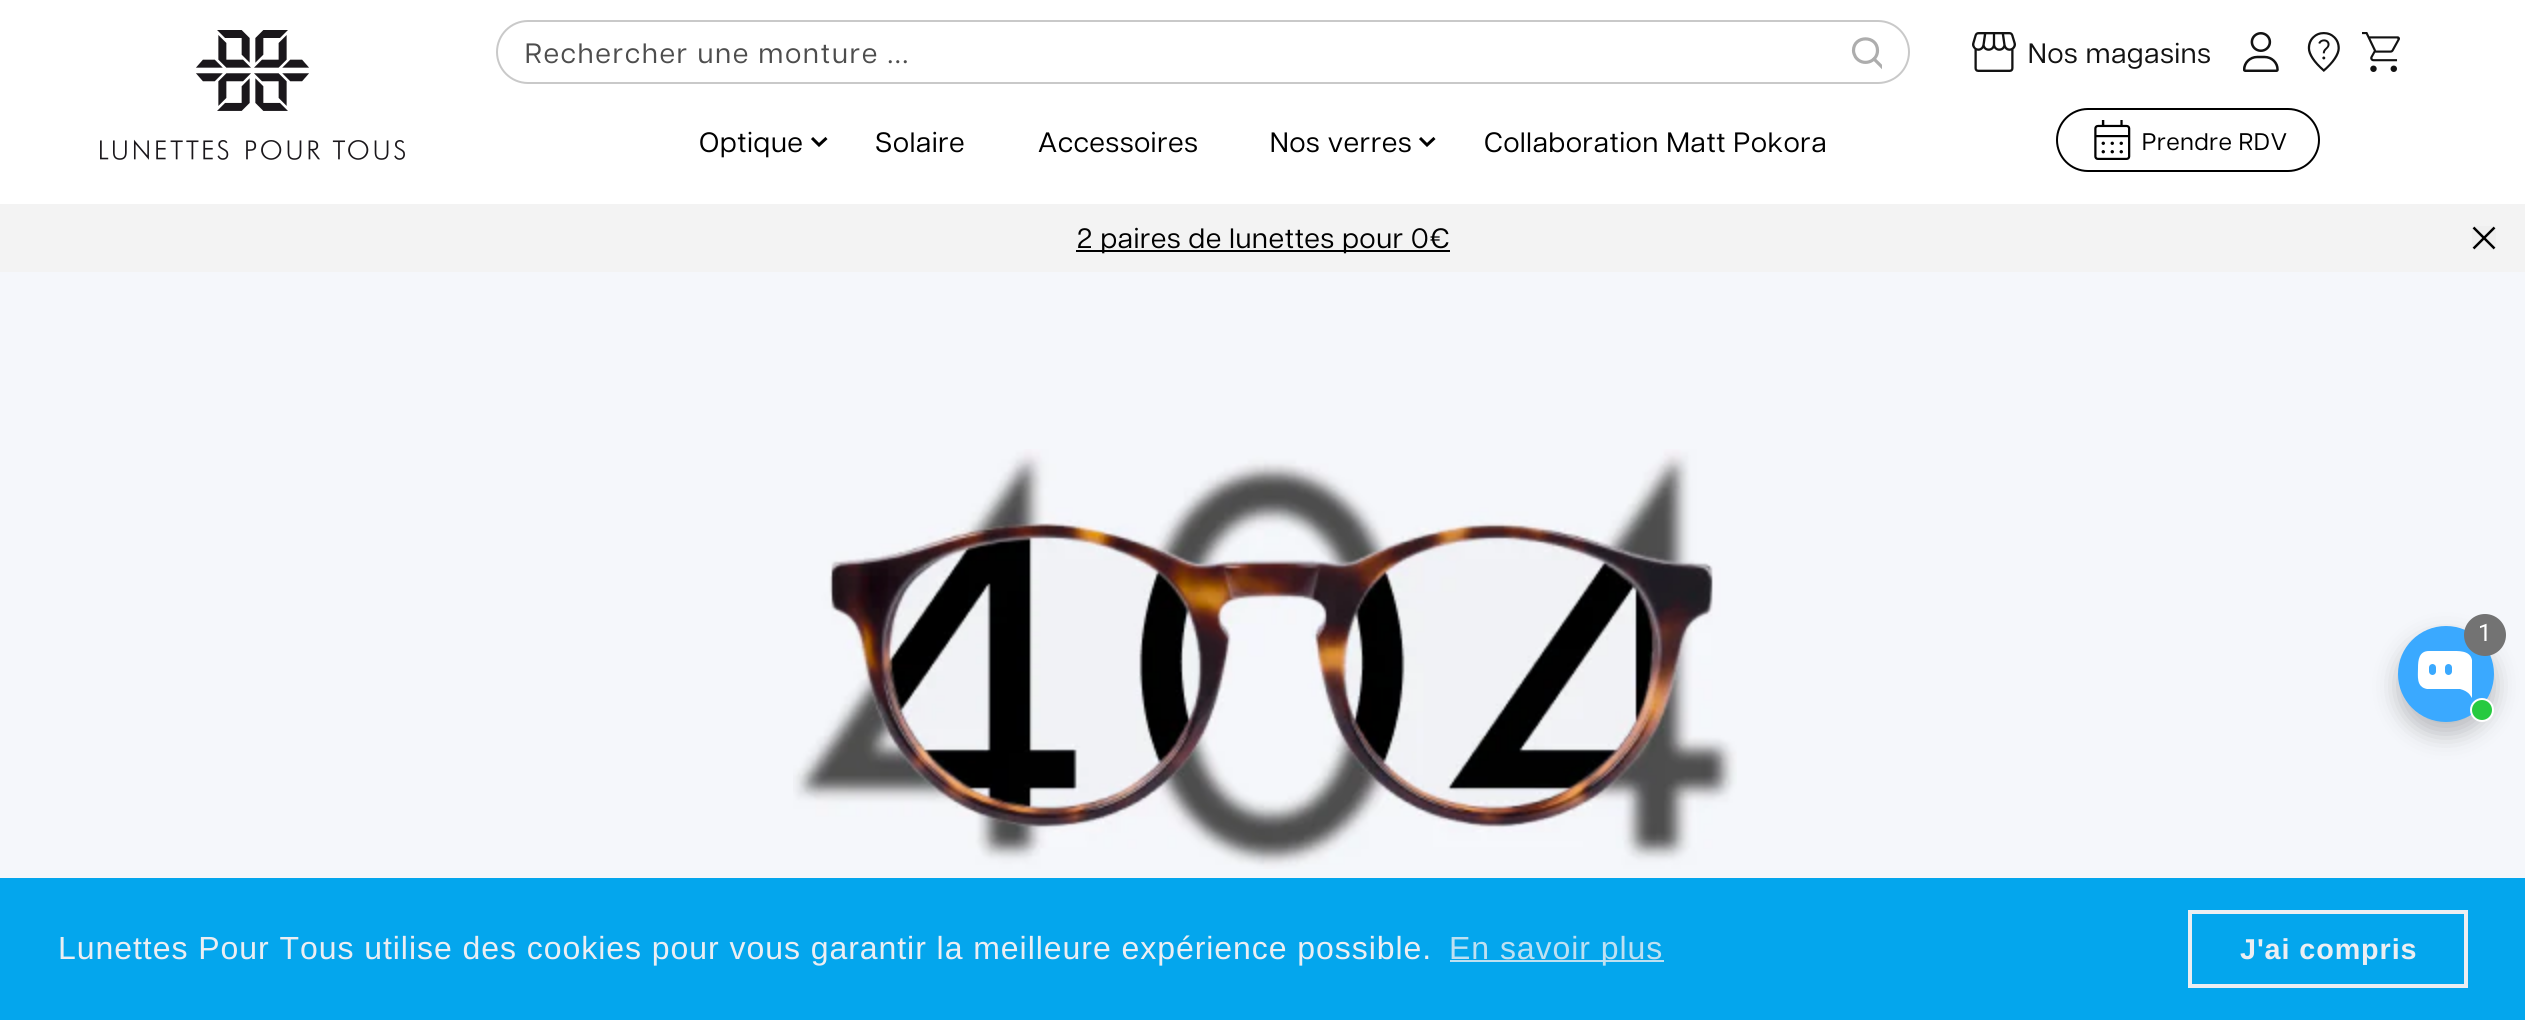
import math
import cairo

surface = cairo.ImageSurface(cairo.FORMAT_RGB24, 2525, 1020)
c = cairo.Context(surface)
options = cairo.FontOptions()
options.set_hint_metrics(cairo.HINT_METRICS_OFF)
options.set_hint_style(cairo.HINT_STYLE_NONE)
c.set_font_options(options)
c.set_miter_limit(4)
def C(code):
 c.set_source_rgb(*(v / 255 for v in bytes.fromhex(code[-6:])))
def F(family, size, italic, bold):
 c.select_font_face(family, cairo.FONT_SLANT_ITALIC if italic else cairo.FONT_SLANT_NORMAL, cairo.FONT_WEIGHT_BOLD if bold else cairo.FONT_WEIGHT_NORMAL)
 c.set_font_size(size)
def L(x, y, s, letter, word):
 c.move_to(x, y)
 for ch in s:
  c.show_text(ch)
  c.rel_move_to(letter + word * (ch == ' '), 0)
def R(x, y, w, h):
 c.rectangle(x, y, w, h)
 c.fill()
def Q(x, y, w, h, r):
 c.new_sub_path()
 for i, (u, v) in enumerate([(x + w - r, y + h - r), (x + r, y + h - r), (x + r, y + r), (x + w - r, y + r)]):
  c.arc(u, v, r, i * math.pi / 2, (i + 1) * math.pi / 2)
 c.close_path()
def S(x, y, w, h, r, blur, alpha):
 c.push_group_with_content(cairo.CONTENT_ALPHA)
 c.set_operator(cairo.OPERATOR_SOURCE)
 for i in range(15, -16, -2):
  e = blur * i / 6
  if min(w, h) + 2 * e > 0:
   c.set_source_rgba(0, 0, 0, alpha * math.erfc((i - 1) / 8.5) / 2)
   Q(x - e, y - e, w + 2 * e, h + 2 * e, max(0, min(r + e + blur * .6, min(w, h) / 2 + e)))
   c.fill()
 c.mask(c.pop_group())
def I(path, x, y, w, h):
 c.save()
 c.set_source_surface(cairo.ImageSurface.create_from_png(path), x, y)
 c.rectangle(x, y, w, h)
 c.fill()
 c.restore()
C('ffffff')
c.paint()
I('1.png',100,30,305,130)
Q(497,21,1412,62,31)
C('c9c9c9')
c.stroke()
F('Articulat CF',28,0,0)
C('4d4d4d')
L(525,63,'Rechercher une monture ...',2,0)
c.new_path()
c.move_to(1877.5,50.5)
c.curve_to(1877.5,62,1862.5,67,1855.5,57)
c.curve_to(1854.5,55,1853.5,53,1853.5,50.5)
c.curve_to(1853.5,35,1877.5,35,1877.5,50.5)
c.close_path()
C('adadad')
c.set_line_width(3.2)
c.stroke()
c.save()
c.rectangle(1852,34,30,36)
c.clip()
c.new_path()
c.move_to(1883.5,68.5)
c.line_to(1874,59)
c.set_line_cap(cairo.LINE_CAP_ROUND)
c.set_line_join(cairo.LINE_JOIN_ROUND)
c.stroke()
c.restore()
I('2.png',1972,32,44,40)
C('121212')
L(2028,63,'Nos magasins',.85,0)
I('3.png',2243,32,36,40)
I('4.png',2307,32,33,40)
I('5.png',2362,32,38,40)
Q(2057,109,262,62,31)
C('000000')
c.set_line_width(2)
c.stroke()
I('6.png',2094,120,37,40)
F('Articulat CF',24,0,0)
L(2142,150,'Prendre RDV',.75,0)
F('Articulat CF',28,0,0)
L(699,152,'Optique',.85,0)
c.new_path()
c.move_to(812,138)
c.line_to(819,145)
c.line_to(826.5,138)
c.set_line_width(3)
c.stroke()
L(875,152,'Solaire',.85,0)
L(1038,152,'Accessoires',.85,0)
L(1270,152,'Nos verres',.85,0)
c.new_path()
c.move_to(1420,138)
c.line_to(1427,145)
c.line_to(1434.5,138)
c.stroke()
L(1484,152,'Collaboration Matt Pokora',.85,0)
C('f3f3f3')
R(0,204,2525,68)
C('000000')
R(1076,250,374,2)
L(1077,248,'2 paires de lunettes pour 0€',.85,0)
C('efefef')
R(2472,226,24,24)
c.new_path()
c.move_to(2494.5,227.5)
c.line_to(2473.5,248.5)
c.move_to(2494.5,248.5)
c.line_to(2473.5,227.5)
C('000000')
c.set_line_width(2.5)
c.set_line_join(cairo.LINE_JOIN_ROUND)
c.stroke()
C('f5f7fb')
R(0,272,2525,606)
I('7.png',793,449,944,420)
C('000000')
S(2398,638,96,96,48,12,.25)
C('3aa9ff')
c.arc(2446,674,48,0,2 * math.pi)
c.fill()
C('ffffff')
c.set_fill_rule(cairo.FILL_RULE_EVEN_ODD)
c.new_path()
c.move_to(2429,651)
c.curve_to(2419,651,2418,660,2418,668)
c.curve_to(2418,676,2416,687,2427,689)
c.line_to(2460,689)
c.curve_to(2464,690,2468,692,2470,695)
c.line_to(2472,698)
c.line_to(2472,660)
c.curve_to(2470,650,2458,651,2450,651)
c.close_path()
c.fill()
C('3aa9ff')
Q(2429,664,7,11,3.5)
c.fill()
Q(2445,664,7,11,3.5)
c.fill()
C('27ca40')
c.arc(2482,710,11,0,2 * math.pi)
c.fill_preserve()
C('ffffff')
c.set_line_width(2)
c.set_line_join(cairo.LINE_JOIN_MITER)
c.stroke()
C('737373')
c.arc(2485,635,21,0,2 * math.pi)
c.fill()
F('Roboto',24,0,0)
C('ffffff')
L(2478,641,'1',.75,0)
C('04a6ed')
R(0,878,2525,142)
F('Liberation Sans',32,0,0)
C('eceef2')
L(58,959,'Lunettes Pour Tous utilise des cookies pour vous garantir la meilleure expérience possible.',.95,0)
C('bee0f1')
R(1450,960,214,2)
L(1449,959,'En savoir plus',.95,0)
c.rectangle(2190,912,276,74)
C('eceef2')
c.set_line_width(4)
c.stroke()
F('Liberation Sans',28.75,0,1)
L(2240,959,'J\'ai compris',.9,0)
surface.write_to_png('o.png')
